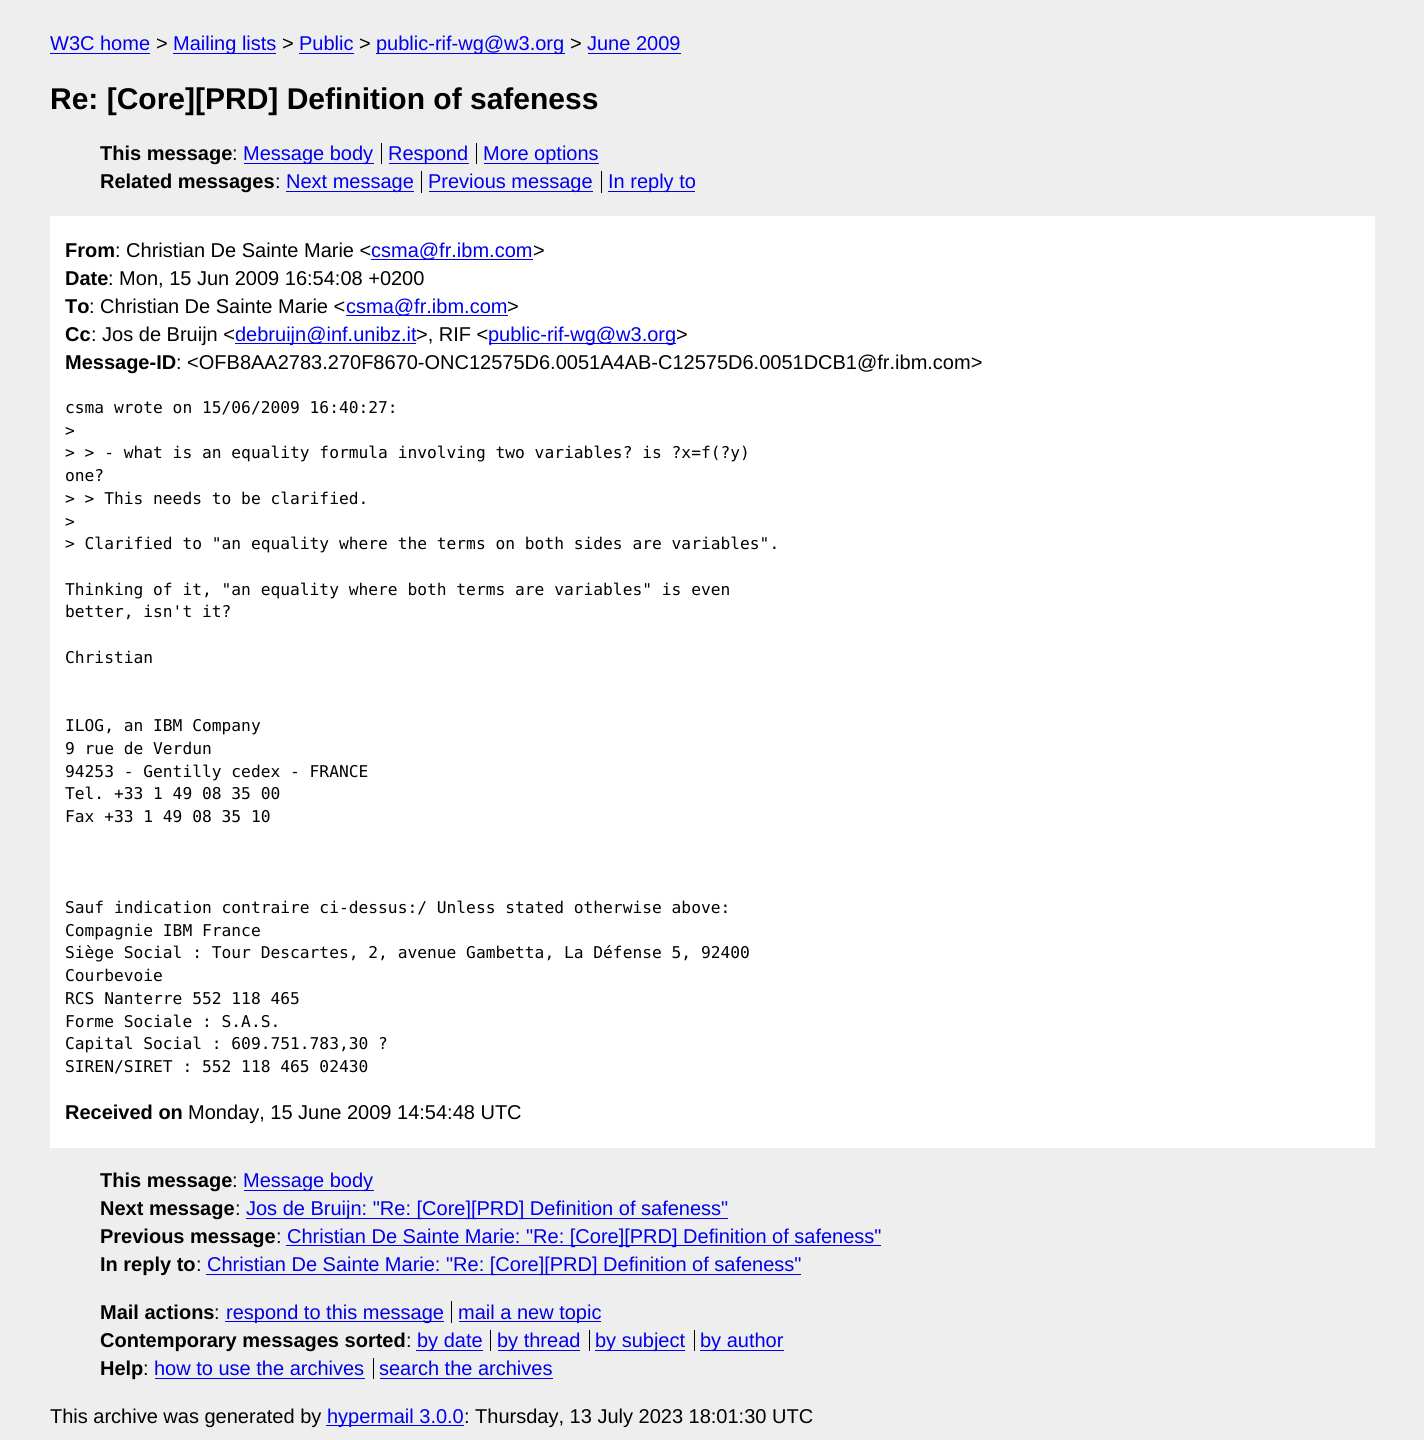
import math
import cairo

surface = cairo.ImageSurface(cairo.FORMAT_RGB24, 1424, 1440)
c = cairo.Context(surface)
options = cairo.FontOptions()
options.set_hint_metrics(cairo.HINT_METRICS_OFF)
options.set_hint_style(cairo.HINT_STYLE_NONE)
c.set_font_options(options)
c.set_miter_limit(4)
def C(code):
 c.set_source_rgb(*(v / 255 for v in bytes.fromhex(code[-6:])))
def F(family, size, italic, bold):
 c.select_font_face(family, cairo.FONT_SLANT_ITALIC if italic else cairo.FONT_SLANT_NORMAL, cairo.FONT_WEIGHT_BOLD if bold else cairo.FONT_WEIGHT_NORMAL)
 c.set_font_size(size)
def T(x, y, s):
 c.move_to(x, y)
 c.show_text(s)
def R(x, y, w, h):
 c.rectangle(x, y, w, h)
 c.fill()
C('eeeeee')
c.paint()
F('Liberation Sans',20,0,0)
C('0000ee')
T(50,50,'W3C home')
R(50,53,100,1)
C('000000')
T(156,50,'>')
C('0000ee')
R(173,53,103,1)
T(173,50,'Mailing lists')
C('000000')
T(282,50,'>')
C('0000ee')
T(299,50,'Public')
R(299,53,55,1)
C('000000')
T(359,50,'>')
C('0000ee')
R(376,53,189,1)
T(376,50,'public-rif-wg@w3.org')
C('000000')
T(570,50,'>')
C('0000ee')
T(587,50,'June 2009')
R(588,53,93,1)
F('Liberation Sans',30,0,1)
C('000000')
T(50,109,'Re: [Core][PRD] Definition of safeness')
F('Liberation Sans',20,0,1)
T(100,160,'This message')
F('Liberation Sans',20,0,0)
T(232,160,':')
C('0000ee')
R(244,163,130,1)
T(243,160,'Message body')
C('000000')
R(381,143,1,21)
C('0000ee')
R(389,163,80,1)
T(388,160,'Respond')
R(484,163,115,1)
T(483,160,'More options')
C('000000')
R(476,143,1,21)
F('Liberation Sans',20,0,1)
T(100,188,'Related messages')
F('Liberation Sans',20,0,0)
T(275,188,':')
C('0000ee')
R(286,191,128,1)
T(286,188,'Next message')
R(429,191,164,1)
T(428,188,'Previous message')
C('000000')
R(421,171,1,22)
C('0000ee')
R(608,191,87,1)
T(608,188,'In reply to')
C('000000')
R(601,171,1,22)
C('ffffff')
R(50,216,1325,932)
F('Liberation Sans',20,0,1)
C('000000')
T(65,257,'From')
F('Liberation Sans',20,0,0)
T(115,257,': Christian De Sainte Marie <')
C('0000ee')
R(371,259,162,1)
T(371,257,'csma@fr.ibm.com')
C('000000')
T(533,257,'>')
F('Liberation Sans',20,0,1)
T(65,285,'Date')
F('Liberation Sans',20,0,0)
T(108,285,': Mon, 15 Jun 2009 16:54:08 +0200')
F('Liberation Sans',20,0,1)
T(65,313,'To')
F('Liberation Sans',20,0,0)
T(89,313,': Christian De Sainte Marie <')
C('0000ee')
R(346,315,162,1)
T(346,313,'csma@fr.ibm.com')
C('000000')
T(507,313,'>')
F('Liberation Sans',20,0,1)
T(65,341,'Cc')
F('Liberation Sans',20,0,0)
T(91,341,': Jos de Bruijn <')
C('0000ee')
R(235,343,181,1)
T(235,341,'debruijn@inf.unibz.it')
C('000000')
T(416,341,'>, RIF <')
C('0000ee')
R(489,343,187,1)
T(488,341,'public-rif-wg@w3.org')
C('000000')
T(676,341,'>')
F('Liberation Sans',20,0,1)
T(65,369,'Message-ID')
F('Liberation Sans',20,0,0)
T(176,369,': <OFB8AA2783.270F8670-ONC12575D6.0051A4AB-C12575D6.0051DCB1@fr.ibm.com>')
F('DejaVu Sans Mono',16.25,0,0)
T(65,413,'csma wrote on 15/06/2009 16:40:27:')
T(65,436,'>')
T(65,458,'> > - what is an equality formula involving two variables? is ?x=f(?y)')
T(65,481,'one?')
T(65,504,'> > This needs to be clarified.')
T(65,527,'>')
T(65,549,'> Clarified to "an equality where the terms on both sides are variables".')
T(65,595,'Thinking of it, "an equality where both terms are variables" is even')
T(65,617,'better, isn\'t it?')
T(65,663,'Christian')
T(65,731,'ILOG, an IBM Company')
T(65,754,'9 rue de Verdun')
T(65,777,'94253 - Gentilly cedex - FRANCE')
T(65,799,'Tel. +33 1 49 08 35 00')
T(65,822,'Fax +33 1 49 08 35 10')
T(65,913,'Sauf indication contraire ci-dessus:/ Unless stated otherwise above:')
T(65,936,'Compagnie IBM France')
T(65,958,'Siège Social : Tour Descartes, 2, avenue Gambetta, La Défense 5, 92400')
T(65,981,'Courbevoie')
T(65,1004,'RCS Nanterre 552 118 465')
T(65,1027,'Forme Sociale : S.A.S.')
T(65,1049,'Capital Social : 609.751.783,30 ?')
T(65,1072,'SIREN/SIRET : 552 118 465 02430')
F('Liberation Sans',20,0,1)
T(65,1119,'Received on')
F('Liberation Sans',20,0,0)
T(188,1119,'Monday, 15 June 2009 14:54:48 UTC')
F('Liberation Sans',20,0,1)
T(100,1187,'This message')
F('Liberation Sans',20,0,0)
T(232,1187,':')
C('0000ee')
R(244,1190,130,1)
T(243,1187,'Message body')
F('Liberation Sans',20,0,1)
C('000000')
T(100,1215,'Next message')
F('Liberation Sans',20,0,0)
T(235,1215,':')
C('0000ee')
R(246,1218,482,1)
T(246,1215,'Jos de Bruijn: "Re: [Core][PRD] Definition of safeness"')
F('Liberation Sans',20,0,1)
C('000000')
T(100,1243,'Previous message')
F('Liberation Sans',20,0,0)
T(276,1243,':')
C('0000ee')
R(286,1245,595,1)
T(287,1243,'Christian De Sainte Marie: "Re: [Core][PRD] Definition of safeness"')
F('Liberation Sans',20,0,1)
C('000000')
T(100,1271,'In reply to')
F('Liberation Sans',20,0,0)
T(196,1271,':')
C('0000ee')
R(206,1274,595,1)
T(207,1271,'Christian De Sainte Marie: "Re: [Core][PRD] Definition of safeness"')
F('Liberation Sans',20,0,1)
C('000000')
T(100,1319,'Mail actions')
F('Liberation Sans',20,0,0)
T(214,1319,':')
C('0000ee')
R(225,1321,219,1)
T(226,1319,'respond to this message')
R(459,1321,142,1)
T(458,1319,'mail a new topic')
C('000000')
R(451,1301,1,22)
F('Liberation Sans',20,0,1)
T(100,1347,'Contemporary messages sorted')
F('Liberation Sans',20,0,0)
T(406,1347,':')
C('0000ee')
R(416,1350,67,1)
T(417,1347,'by date')
R(498,1350,82,1)
T(497,1347,'by thread')
C('000000')
R(490,1330,1,21)
C('0000ee')
R(595,1350,90,1)
T(595,1347,'by subject')
C('000000')
R(589,1330,1,21)
C('0000ee')
R(700,1350,84,1)
T(700,1347,'by author')
C('000000')
R(694,1330,1,21)
F('Liberation Sans',20,0,1)
T(100,1375,'Help')
F('Liberation Sans',20,0,0)
T(143,1375,':')
C('0000ee')
T(154,1375,'how to use the archives')
R(155,1378,210,1)
T(379,1375,'search the archives')
C('000000')
R(373,1358,1,21)
C('0000ee')
R(380,1378,173,1)
C('000000')
T(50,1423,'This archive was generated by')
C('0000ee')
R(326,1425,138,1)
T(327,1423,'hypermail 3.0.0')
C('000000')
T(464,1423,': Thursday, 13 July 2023 18:01:30 UTC')
surface.write_to_png('o.png')
